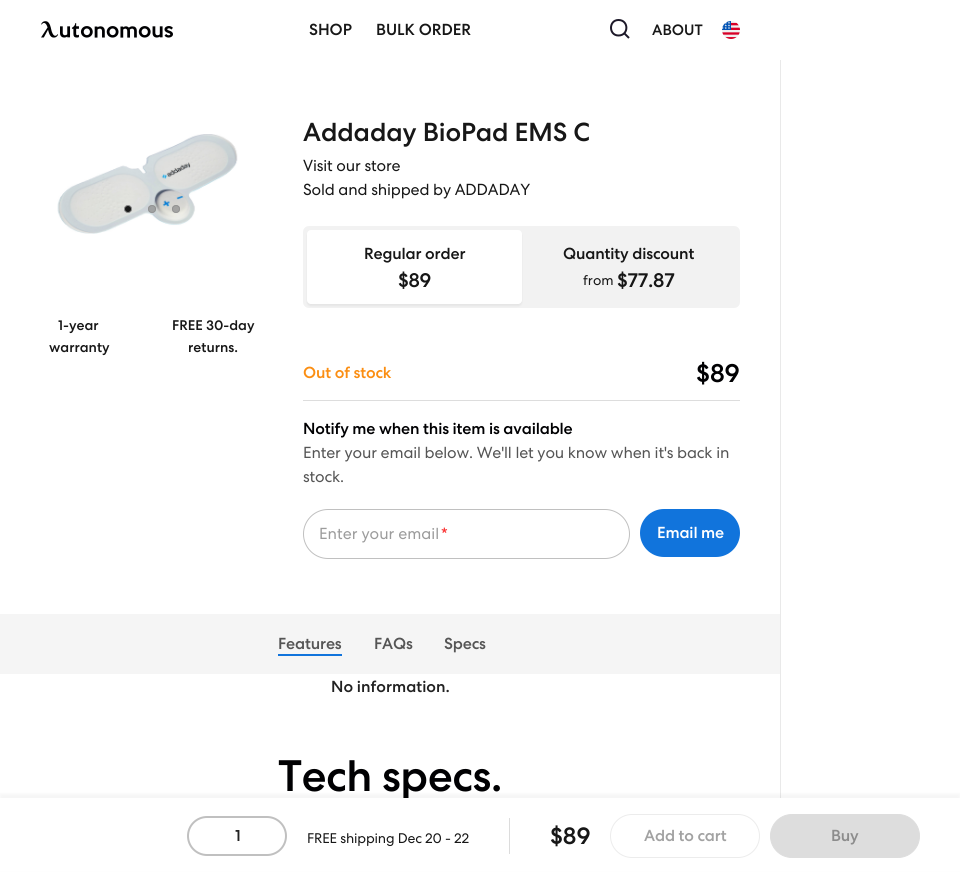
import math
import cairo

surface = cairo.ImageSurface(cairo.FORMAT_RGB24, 960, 874)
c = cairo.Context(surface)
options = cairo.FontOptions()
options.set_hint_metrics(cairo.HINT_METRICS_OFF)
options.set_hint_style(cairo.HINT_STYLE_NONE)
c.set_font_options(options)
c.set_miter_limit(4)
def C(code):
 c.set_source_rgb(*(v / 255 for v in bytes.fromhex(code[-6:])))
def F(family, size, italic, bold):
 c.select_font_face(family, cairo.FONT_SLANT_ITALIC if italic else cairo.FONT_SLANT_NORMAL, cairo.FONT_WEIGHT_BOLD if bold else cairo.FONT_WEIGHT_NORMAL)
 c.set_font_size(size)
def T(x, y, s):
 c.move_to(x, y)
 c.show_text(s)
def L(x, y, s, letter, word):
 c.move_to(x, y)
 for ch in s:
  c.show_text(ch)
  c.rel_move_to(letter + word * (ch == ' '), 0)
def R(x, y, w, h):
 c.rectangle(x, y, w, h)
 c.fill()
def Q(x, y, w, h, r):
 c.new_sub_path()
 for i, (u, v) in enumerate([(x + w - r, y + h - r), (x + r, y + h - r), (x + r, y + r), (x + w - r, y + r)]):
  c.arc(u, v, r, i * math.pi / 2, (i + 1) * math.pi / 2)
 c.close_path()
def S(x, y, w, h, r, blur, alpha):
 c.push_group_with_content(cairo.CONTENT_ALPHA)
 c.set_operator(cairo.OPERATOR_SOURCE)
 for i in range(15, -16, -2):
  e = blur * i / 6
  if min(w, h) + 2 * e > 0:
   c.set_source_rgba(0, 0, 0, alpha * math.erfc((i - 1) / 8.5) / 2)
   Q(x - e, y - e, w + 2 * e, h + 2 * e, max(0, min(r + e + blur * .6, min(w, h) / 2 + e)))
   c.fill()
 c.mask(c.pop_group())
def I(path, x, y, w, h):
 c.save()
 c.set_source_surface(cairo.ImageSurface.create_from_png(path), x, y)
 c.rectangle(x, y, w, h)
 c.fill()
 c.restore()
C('ffffff')
c.paint()
I('1.png',41,21,132,17)
F('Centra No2 Medium',16,0,0)
C('171717')
T(309,35,'SHOP')
T(376,35,'BULK ORDER')
c.new_path()
c.move_to(629,38)
c.line_to(624,33)
c.move_to(618.5,35.5)
c.curve_to(608.5,35.5,608.5,20,618.5,20)
c.curve_to(629,20,629,35.5,618.5,35.5)
c.close_path()
C('1d1929')
c.stroke()
F('Centra No2 Medium',15,0,0)
C('171717')
T(652,35,'ABOUT')
I('2.png',722,21,18,18)
I('3.png',57,134,181,100)
c.arc(128,209,3.5,0,2 * math.pi)
c.fill_preserve()
C('8c8c8c')
c.set_line_width(1)
c.stroke()
c.set_source_rgba(0.549,0.549,0.549,0.7)
c.arc(152,209,4,0,2 * math.pi)
c.fill()
c.arc(152,209,3.5,0,2 * math.pi)
c.stroke()
c.arc(176,209,4,0,2 * math.pi)
c.fill()
c.arc(176,209,3.5,0,2 * math.pi)
c.stroke()
F('Centra No2 Medium',14,0,0)
C('171717')
T(58,330,'1-year')
T(49,352,'warranty')
T(172,330,'FREE 30-day')
T(188,352,'returns.')
F('Centra No2 Medium',26,0,0)
L(303,141,'Addaday BioPad EMS C',-.1,0)
F('Centra No2',16,0,0)
L(303,171,'Visit our store',-.15,0)
L(303,195,'Sold and shipped by ADDADAY',-.15,0)
C('f2f2f2')
Q(303,226,437,82,6)
c.fill()
C('000000')
S(307,232,215,74,4,1,.06)
C('ffffff')
Q(307,230,215,74,4)
c.fill()
F('Centra No2 Medium',16,0,0)
C('171717')
L(364,259,'Regular order',-.15,0)
F('Centra No2 Medium',20,0,0)
L(398,287,'$89',-.25,0)
F('Centra No2 Medium',16,0,0)
L(563,259,'Quantity discount',-.15,0)
F('Centra No2',14,0,0)
T(583,285,'from')
F('Centra No2 Medium',20,0,0)
L(617,287,'$77.87',-.25,0)
F('Centra No2 Medium',16,0,0)
C('fb8e12')
L(303,378,'Out of stock',-.15,0)
F('Centra No2 Medium',26,0,0)
C('000002')
T(696,382,'$89')
C('dddddd')
R(303,400,437,1)
F('Centra No2 Medium',16,0,0)
C('000002')
L(303,434,'Notify me when this item is available',-.15,0)
F('Centra No2',16,0,0)
C('555555')
L(303,458,'Enter your email below. We\'ll let you know when it\'s back in',-.15,0)
L(303,482,'stock.',-.15,0)
Q(303.5,509.5,326,49,24.5)
C('c0c0c0')
c.stroke()
C('9c9c9c')
T(319,539,'Enter your email')
C('fa3434')
T(441,539,'*')
C('1174dc')
Q(640,509,100,48,24)
c.fill()
F('Centra No2 Medium',16,0,0)
C('ffffff')
L(657,538,'Email me',-.15,0)
C('f5f5f5')
R(0,614,780,60)
C('555555')
L(278,649,'Features',-.15,0)
C('1174dc')
R(278,654,64,2)
C('555555')
L(374,649,'FAQs',-.15,0)
L(444,649,'Specs',-.15,0)
C('222222')
T(331,692,'No information.')
F('Centra No2 Medium',44,0,0)
C('000002')
L(278,791,'Tech specs.',-.5,0)
C('e9e9e9')
R(780,60,1,738)
C('000000')
S(0,794,960,76,0,2,.04)
C('ffffff')
R(0,798,960,73)
Q(188,817,98,38,19)
C('c0c0c0')
c.set_line_width(2)
c.stroke()
F('Centra No2 Medium',16,0,0)
C('222222')
T(235,841,'1')
F('Centra No2',14,0,0)
C('171717')
L(307,843,'FREE shipping Dec 20 - 22',-.15,0)
C('dcdcdc')
R(509,818,1,36)
F('Centra No2 Medium',24,0,0)
C('171717')
T(550,844,'$89')
Q(610.5,814.5,149,43,21.5)
C('ececec')
c.set_line_width(1)
c.stroke()
F('Centra No2 Medium',16,0,0)
C('a2a2a2')
L(644,841,'Add to cart',-.15,0)
C('dddddd')
Q(770.5,814.5,149,43,21.5)
c.fill_preserve()
c.stroke()
C('8c8c8c')
L(831,841,'Buy',-.15,0)
surface.write_to_png('o.png')
